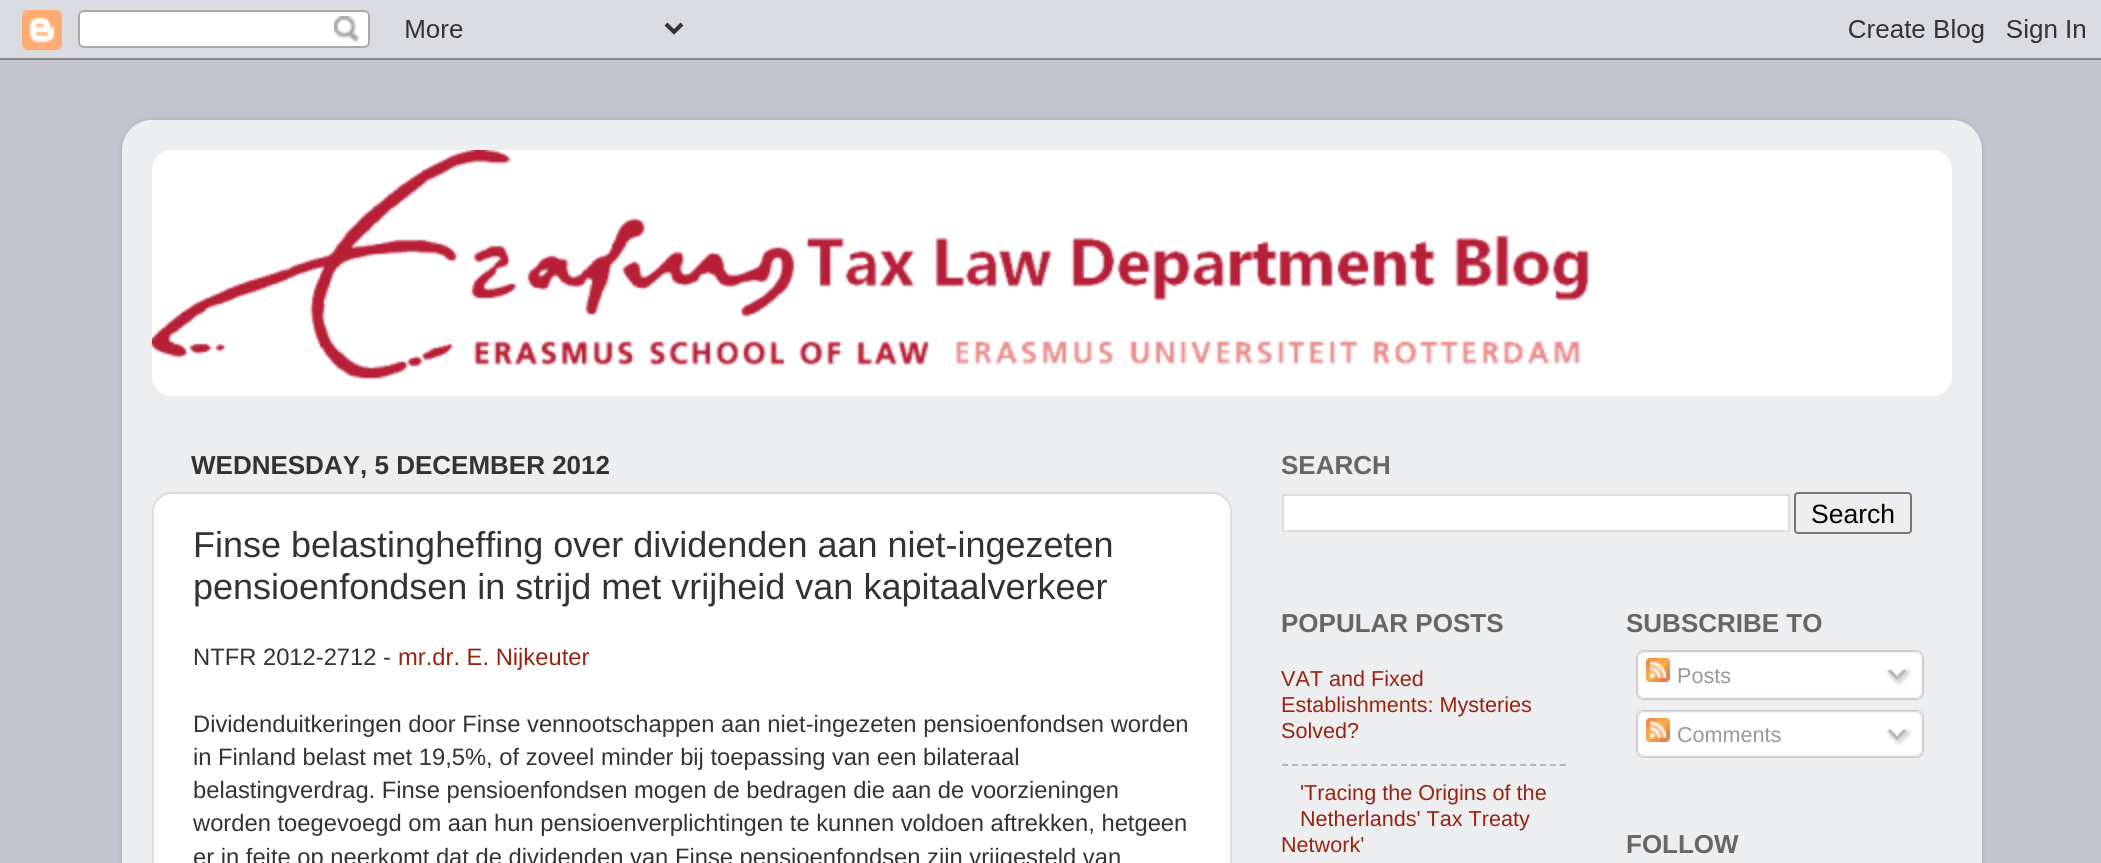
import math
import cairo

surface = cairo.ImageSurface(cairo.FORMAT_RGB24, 2101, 863)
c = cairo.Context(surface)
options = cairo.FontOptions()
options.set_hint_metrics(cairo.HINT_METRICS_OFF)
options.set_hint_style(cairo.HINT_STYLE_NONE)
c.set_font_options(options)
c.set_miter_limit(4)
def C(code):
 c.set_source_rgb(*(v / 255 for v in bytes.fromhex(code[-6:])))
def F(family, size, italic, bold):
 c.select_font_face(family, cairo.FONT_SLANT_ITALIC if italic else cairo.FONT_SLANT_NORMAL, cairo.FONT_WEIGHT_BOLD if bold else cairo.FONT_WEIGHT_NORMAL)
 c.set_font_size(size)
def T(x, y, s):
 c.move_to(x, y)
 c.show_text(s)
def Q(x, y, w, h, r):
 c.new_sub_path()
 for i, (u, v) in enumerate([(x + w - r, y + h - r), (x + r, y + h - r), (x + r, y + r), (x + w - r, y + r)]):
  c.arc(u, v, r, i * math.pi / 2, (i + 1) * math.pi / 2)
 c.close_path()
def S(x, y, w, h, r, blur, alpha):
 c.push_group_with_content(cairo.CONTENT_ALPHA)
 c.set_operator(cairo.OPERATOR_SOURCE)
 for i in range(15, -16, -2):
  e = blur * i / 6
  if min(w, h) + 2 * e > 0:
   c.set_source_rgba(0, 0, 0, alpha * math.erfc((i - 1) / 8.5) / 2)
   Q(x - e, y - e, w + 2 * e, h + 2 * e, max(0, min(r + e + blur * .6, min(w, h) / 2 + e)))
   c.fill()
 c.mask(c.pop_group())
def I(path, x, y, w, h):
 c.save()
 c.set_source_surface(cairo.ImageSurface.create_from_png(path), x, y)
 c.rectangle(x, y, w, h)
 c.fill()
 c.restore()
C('c2c5ce')
c.paint()
I('1.png',0,0,2101,60)
c.save()
c.set_fill_rule(cairo.FILL_RULE_EVEN_ODD)
c.new_path()
c.move_to(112,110)
c.line_to(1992,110)
c.line_to(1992,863)
c.line_to(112,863)
c.close_path()
c.move_to(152,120)
c.line_to(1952,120)
c.curve_to(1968.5,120,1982,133.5,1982,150)
c.line_to(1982,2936)
c.curve_to(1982,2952.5,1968.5,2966,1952,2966)
c.line_to(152,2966)
c.curve_to(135.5,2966,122,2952.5,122,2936)
c.line_to(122,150)
c.curve_to(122,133.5,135.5,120,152,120)
c.close_path()
c.clip()
C('000000')
S(122,120,1860,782,30,3,.15)
c.restore()
I('2.png',122,120,1860,743)
C('ffffff')
Q(152,150,1800,246,20)
c.fill()
I('3.png',152,150,1437,230)
F('Liberation Sans',26,0,1)
C('333333')
T(191,474,'WEDNESDAY, 5 DECEMBER 2012')
C('ffffff')
Q(153,493,1078,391,19)
c.fill_preserve()
C('dddddd')
c.stroke()
F('Liberation Sans',36,0,0)
C('333333')
T(193,557,'Finse belastingheffing over dividenden aan niet-ingezeten')
T(193,599,'pensioenfondsen in strijd met vrijheid van kapitaalverkeer')
F('Liberation Sans',23.75,0,0)
T(193,665,'NTFR 2012-2712 -')
C('992211')
T(398,665,'mr.dr. E. Nijkeuter')
C('333333')
T(193,732,'Dividenduitkeringen door Finse vennootschappen aan niet-ingezeten pensioenfondsen worden')
T(193,765,'in Finland belast met 19,5%, of zoveel minder bij toepassing van een bilateraal')
T(193,798,'belastingverdrag. Finse pensioenfondsen mogen de bedragen die aan de')
T(971,798,'voorzieningen')
T(193,831,'worden toegevoegd om aan hun pensioenverplichtingen te kunnen voldoen aftrekken, hetgeen')
T(193,865,'er in feite op neerkomt dat de dividenden van Finse pensioenfondsen zijn vrijgesteld van')
F('Liberation Sans',26,0,1)
C('666666')
T(1281,474,'SEARCH')
C('ffffff')
c.rectangle(1283,495,506,36)
c.fill_preserve()
C('dddddd')
c.stroke()
Q(1795,493,116,40,3)
C('767676')
c.stroke()
F('Liberation Sans',26.5,0,0)
C('000000')
T(1811,523,'Search')
F('Liberation Sans',26,0,1)
C('666666')
T(1281,632,'POPULAR POSTS')
F('Liberation Sans',21.6,0,0)
C('992211')
T(1281,686,'VAT and Fixed')
T(1281,712,'Establishments: Mysteries')
T(1281,738,'Solved?')
c.new_path()
c.move_to(1282,765)
c.line_to(1566,765)
C('b6b7b8')
c.set_dash([6,3.92])
c.stroke()
C('992211')
T(1300,800,'\'Tracing the Origins of the')
T(1300,826,'Netherlands\' Tax Treaty')
T(1281,852,'Network\'')
F('Liberation Sans',26,0,1)
C('666666')
T(1626,632,'SUBSCRIBE TO')
I('4.png',1636,650,288,44)
I('5.png',1646,658,24,24)
F('Liberation Sans',21.6,0,0)
C('999999')
T(1677,683,'Posts')
I('6.png',1886,668,26,18)
I('7.png',1636,694,288,6)
I('8.png',1636,710,288,42)
I('5.png',1646,718,24,24)
T(1677,742,'Comments')
I('6.png',1886,728,26,18)
I('7.png',1636,752,288,6)
F('Liberation Sans',26,0,1)
C('666666')
T(1626,853,'FOLLOW')
surface.write_to_png('o.png')
